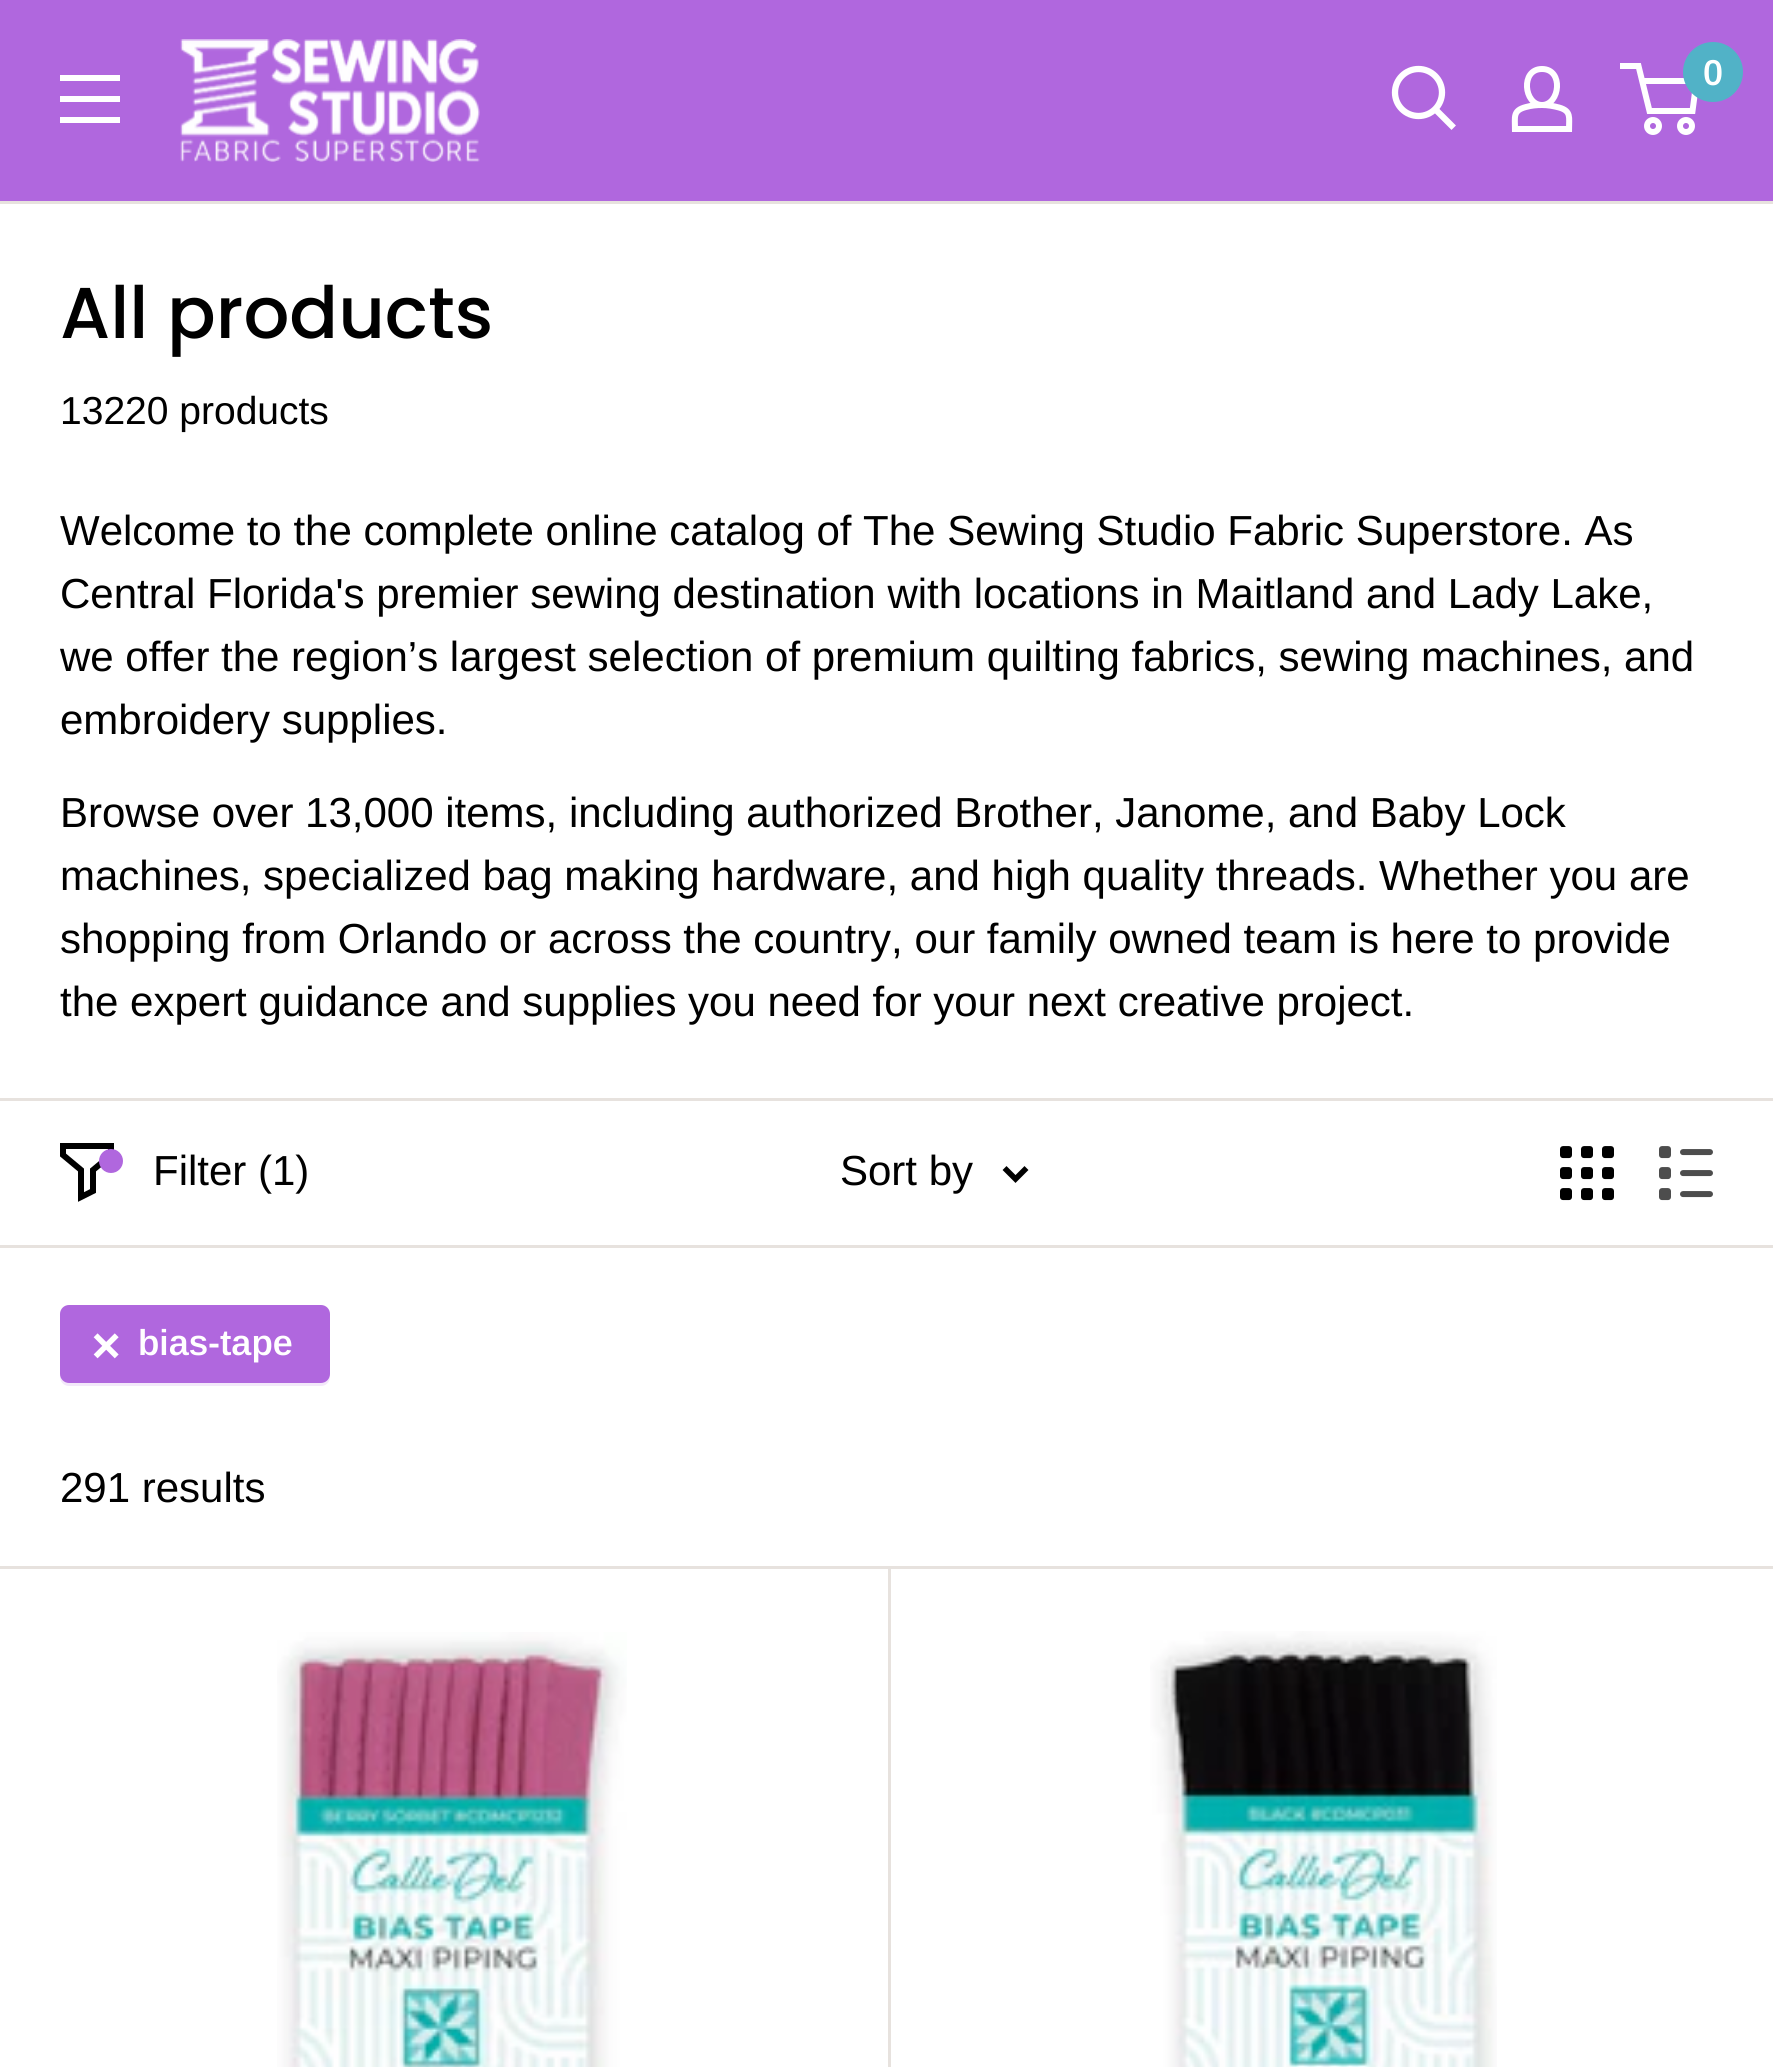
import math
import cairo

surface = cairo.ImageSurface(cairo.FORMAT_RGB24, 1773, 2067)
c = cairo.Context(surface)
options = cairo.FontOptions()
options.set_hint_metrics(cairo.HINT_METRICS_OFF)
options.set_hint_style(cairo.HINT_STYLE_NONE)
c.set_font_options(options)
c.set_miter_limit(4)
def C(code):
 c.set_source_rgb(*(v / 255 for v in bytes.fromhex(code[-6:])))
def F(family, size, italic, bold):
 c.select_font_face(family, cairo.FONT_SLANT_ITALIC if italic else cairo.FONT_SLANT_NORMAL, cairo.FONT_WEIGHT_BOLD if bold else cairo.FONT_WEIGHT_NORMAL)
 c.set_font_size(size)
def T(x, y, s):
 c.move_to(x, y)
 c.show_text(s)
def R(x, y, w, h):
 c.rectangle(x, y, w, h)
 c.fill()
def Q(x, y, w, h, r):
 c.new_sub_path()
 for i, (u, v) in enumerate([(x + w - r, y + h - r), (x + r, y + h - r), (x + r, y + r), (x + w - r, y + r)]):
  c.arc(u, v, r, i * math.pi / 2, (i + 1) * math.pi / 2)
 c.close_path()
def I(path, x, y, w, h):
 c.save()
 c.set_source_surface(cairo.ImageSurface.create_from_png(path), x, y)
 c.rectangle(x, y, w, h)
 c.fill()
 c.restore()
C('ffffff')
c.paint()
C('b067de')
R(0,0,1773,201)
C('ffffff')
c.set_fill_rule(cairo.FILL_RULE_EVEN_ODD)
c.new_path()
c.move_to(60,117)
c.line_to(120,117)
c.line_to(120,123)
c.line_to(60,123)
c.close_path()
c.move_to(60,75)
c.line_to(120,75)
c.line_to(120,81)
c.line_to(60,81)
c.close_path()
c.move_to(60,96)
c.line_to(120,96)
c.line_to(120,102)
c.line_to(60,102)
c.close_path()
c.fill()
I('1.png',180,39,300,123)
c.new_path()
c.move_to(1451.5,125.5)
c.line_to(1436,110)
c.set_line_width(6.3)
c.set_line_cap(cairo.LINE_CAP_SQUARE)
c.stroke()
c.arc(1418.5,92.5,23.5,0,2 * math.pi)
c.set_line_cap(cairo.LINE_CAP_BUTT)
c.stroke()
c.new_path()
c.move_to(1542,105)
c.curve_to(1547.5,105,1553.5,106,1559,107.5)
c.curve_to(1571.5,111,1569,117.5,1569,129)
c.line_to(1515,129)
c.curve_to(1515,117,1512.5,110.5,1526,107)
c.curve_to(1531.5,105.5,1536.5,105,1542,105)
c.close_path()
c.move_to(1542,105)
c.curve_to(1524,105,1520,69,1542,69)
c.curve_to(1564,69,1560,105,1542,105)
c.close_path()
c.set_line_width(6)
c.stroke()
c.arc(1653,126,6,0,2 * math.pi)
c.stroke()
c.arc(1686,126,6,0,2 * math.pi)
c.stroke()
c.new_path()
c.move_to(1642,81)
c.line_to(1696.5,81)
c.line_to(1692.5,111)
c.line_to(1649.5,111)
c.line_to(1638.5,66)
c.line_to(1620,66)
c.stroke()
C('51b2c7')
c.arc(1713,72,30,0,2 * math.pi)
c.fill()
F('Arimo SemiBold',36,0,0)
C('ffffff')
T(1703,85,'0')
C('e7e2de')
R(0,201,1773,3)
F('Poppins Medium',72,0,0)
C('000000')
T(60,338,'All products')
F('Arimo',39,0,0)
T(60,424,'13220 products')
F('Arimo',42,0,0)
T(60,545,'Welcome to the complete online catalog of The Sewing Studio Fabric Superstore. As')
T(60,608,'Central Florida\'s premier sewing destination with locations in Maitland and Lady Lake,')
T(60,671,'we offer the region’s largest selection of premium quilting fabrics, sewing machines, and')
T(60,734,'embroidery supplies.')
T(60,827,'Browse over 13,000 items, including authorized Brother, Janome, and Baby Lock')
T(60,890,'machines, specialized bag making hardware, and high quality threads. Whether you are')
T(60,953,'shopping from Orlando or across the country, our family owned team is here to provide')
T(60,1016,'the expert guidance and supplies you need for your next creative project.')
C('e7e2de')
R(0,1098,1773,3)
R(0,1245,1773,3)
c.new_path()
c.move_to(111,1155)
c.line_to(93,1170)
c.line_to(93,1191)
c.line_to(81,1197)
c.line_to(81,1170)
c.line_to(63,1155)
c.line_to(63,1146)
c.line_to(111,1146)
c.close_path()
C('000000')
c.set_line_cap(cairo.LINE_CAP_SQUARE)
c.stroke()
C('b067de')
c.arc(111,1161,12,0,2 * math.pi)
c.fill()
C('000000')
T(153,1185,'Filter (1)')
T(840,1185,'Sort by')
c.new_path()
c.move_to(1024.5,1170)
c.line_to(1015.5,1179)
c.line_to(1006.5,1170)
c.set_line_width(5.6)
c.stroke()
I('2.png',1560,1146,54,55)
I('3.png',1659,1146,54,55)
C('e7e2de')
R(0,1566,1773,3)
C('f3e8fa')
c.set_fill_rule(cairo.FILL_RULE_WINDING)
c.new_path()
c.move_to(60,1374)
c.line_to(60,1377)
c.curve_to(60,1382,64,1386,69,1386)
c.line_to(321,1386)
c.curve_to(326,1386,330,1382,330,1377)
c.line_to(330,1374)
c.curve_to(330,1379,326,1383,321,1383)
c.line_to(69,1383)
c.curve_to(64,1383,60,1379,60,1374)
c.close_path()
c.fill()
C('b067de')
Q(60,1305,270,78,9)
c.fill()
I('4.png',93,1333,26,26)
F('Arimo SemiBold',36,0,0)
C('ffffff')
T(138,1355,'bias-tape')
F('Arimo',42,0,0)
C('000000')
T(60,1502,'291 results')
I('5.png',277,1632,350,435)
C('e7e2de')
R(888,1569,3,498)
I('6.png',1150,1631,347,436)
surface.write_to_png('o.png')
